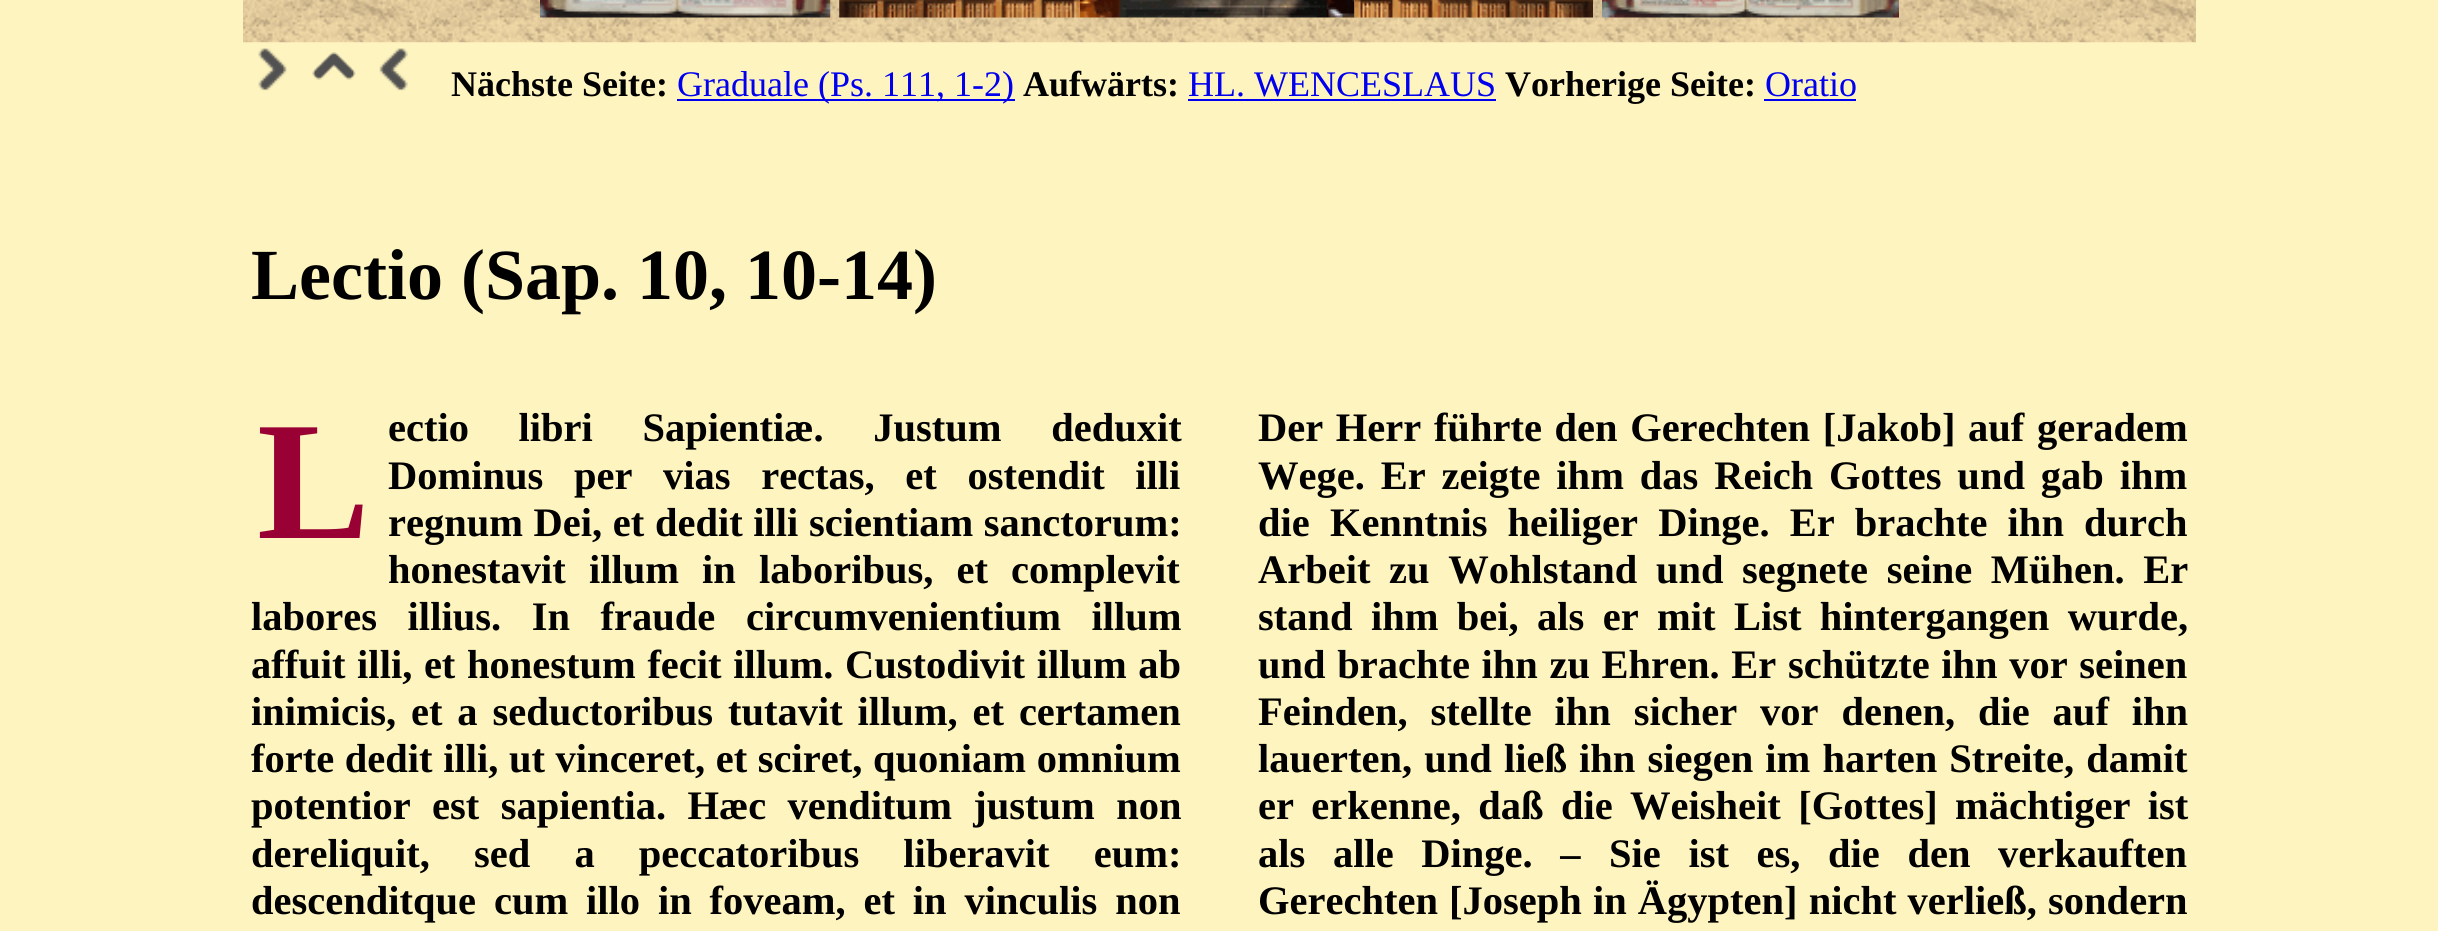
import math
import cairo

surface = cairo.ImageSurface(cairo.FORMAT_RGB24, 2438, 931)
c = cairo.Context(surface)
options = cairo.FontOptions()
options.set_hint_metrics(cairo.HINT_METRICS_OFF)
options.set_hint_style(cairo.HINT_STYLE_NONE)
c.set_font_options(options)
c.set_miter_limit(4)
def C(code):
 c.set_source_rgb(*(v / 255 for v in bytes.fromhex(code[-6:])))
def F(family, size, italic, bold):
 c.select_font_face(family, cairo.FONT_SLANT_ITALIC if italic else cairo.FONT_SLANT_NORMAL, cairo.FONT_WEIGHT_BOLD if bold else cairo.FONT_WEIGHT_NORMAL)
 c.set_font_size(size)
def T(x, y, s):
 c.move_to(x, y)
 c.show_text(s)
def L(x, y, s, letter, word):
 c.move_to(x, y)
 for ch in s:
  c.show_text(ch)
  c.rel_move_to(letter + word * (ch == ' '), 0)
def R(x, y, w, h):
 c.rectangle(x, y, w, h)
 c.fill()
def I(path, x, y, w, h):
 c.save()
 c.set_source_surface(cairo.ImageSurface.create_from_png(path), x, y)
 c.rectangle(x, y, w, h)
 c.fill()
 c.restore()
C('fef4bf')
c.paint()
I('1.png',243,0,1953,43)
I('2.png',540,0,291,18)
I('3.png',839,0,241,18)
I('4.png',1080,0,275,18)
I('5.png',1354,0,239,18)
I('6.png',1602,0,297,18)
I('7.png',258,48,29,43)
I('8.png',312,52,44,28)
I('9.png',379,48,29,43)
F('Liberation Serif',36,0,1)
C('000000')
T(451,96,'Nächste Seite:')
C('0000ee')
R(677,99,338,2)
F('Liberation Serif',36,0,0)
T(677,96,'Graduale (Ps. 111, 1-2)')
F('Liberation Serif',36,0,1)
C('000000')
T(1023,96,'Aufwärts:')
F('Liberation Serif',36,0,0)
C('0000ee')
T(1188,96,'HL. WENCESLAUS')
R(1188,99,308,2)
F('Liberation Serif',36,0,1)
C('000000')
T(1505,96,'Vorherige Seite:')
F('Liberation Serif',36,0,0)
C('0000ee')
T(1765,96,'Oratio')
R(1764,99,92,2)
F('Liberation Serif',72,0,1)
C('000000')
T(251,299,'Lectio (Sap. 10, 10-14)')
F('Liberation Serif',169,0,1)
C('990033')
T(257,538,'L')
F('Liberation Serif',40.5,0,1)
C('000000')
L(388,441,'ectio libri Sapientiæ. Justum deduxit',0,39.5)
L(388,489,'Dominus per vias rectas, et ostendit illi',0,20.5)
L(388,536,'regnum Dei, et dedit illi scientiam sanctorum:',0,.5)
L(388,583,'honestavit illum in laboribus, et complevit',0,13)
L(251,630,'labores illius. In fraude circumvenientium illum',0,20.5)
L(251,678,'affuit illi, et honestum fecit illum. Custodivit illum ab',0,1.5)
L(251,725,'inimicis, et a seductoribus tutavit illum, et certamen',0,4.75)
L(251,772,'forte dedit illi, ut vinceret, et sciret, quoniam omnium',0,.5)
L(251,819,'potentior est sapientia. Hæc venditum justum non',0,11.25)
L(251,867,'dereliquit, sed a peccatoribus liberavit eum:',0,34)
L(251,914,'descenditque cum illo in foveam, et in vinculis non',0,7.75)
L(1258,441,'Der Herr führte den Gerechten [Jakob] auf geradem',0,2.5)
L(1258,489,'Wege. Er zeigte ihm das Reich Gottes und gab ihm',0,5.75)
L(1258,536,'die Kenntnis heiliger Dinge. Er brachte ihn durch',0,10)
L(1258,583,'Arbeit zu Wohlstand und segnete seine Mühen. Er',0,8.5)
L(1258,630,'stand ihm bei, als er mit List hintergangen wurde,',0,8.25)
L(1258,678,'und brachte ihn zu Ehren. Er schützte ihn vor seinen',0,1.5)
L(1258,725,'Feinden, stellte ihn sicher vor denen, die auf ihn',0,12.75)
L(1258,772,'lauerten, und ließ ihn siegen im harten Streite, damit',0,2)
L(1258,819,'er erkenne, daß die Weisheit [Gottes] mächtiger ist',0,7.25)
L(1258,867,'als alle Dinge. –',0,17.5)
L(1609,867,'Sie ist es, die den verkauften',0,17.5)
L(1258,914,'Gerechten [Joseph in Ägypten] nicht verließ, sondern',0,1)
surface.write_to_png('o.png')
